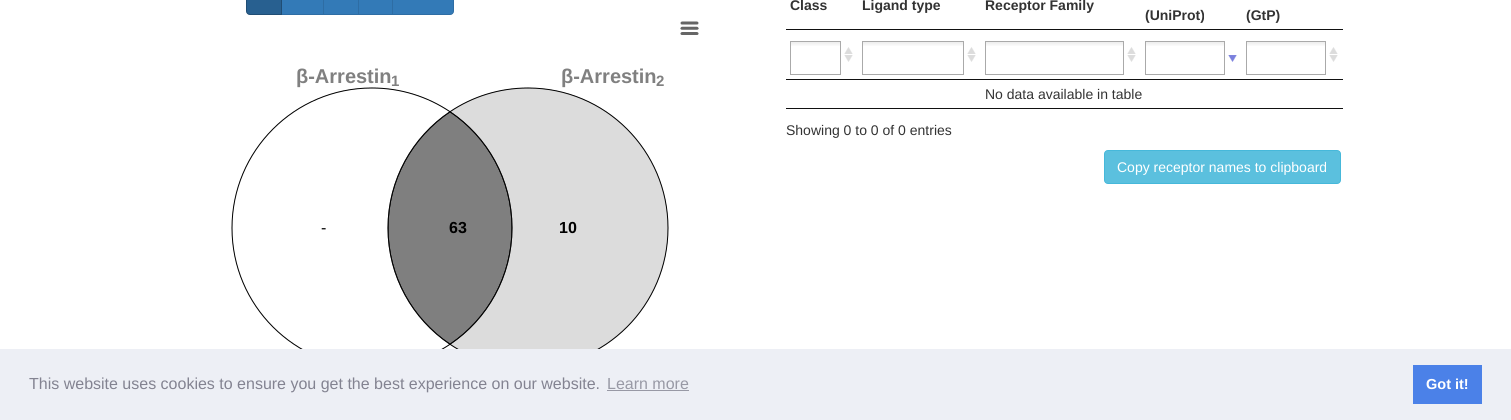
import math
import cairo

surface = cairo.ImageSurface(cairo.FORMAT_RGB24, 1511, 420)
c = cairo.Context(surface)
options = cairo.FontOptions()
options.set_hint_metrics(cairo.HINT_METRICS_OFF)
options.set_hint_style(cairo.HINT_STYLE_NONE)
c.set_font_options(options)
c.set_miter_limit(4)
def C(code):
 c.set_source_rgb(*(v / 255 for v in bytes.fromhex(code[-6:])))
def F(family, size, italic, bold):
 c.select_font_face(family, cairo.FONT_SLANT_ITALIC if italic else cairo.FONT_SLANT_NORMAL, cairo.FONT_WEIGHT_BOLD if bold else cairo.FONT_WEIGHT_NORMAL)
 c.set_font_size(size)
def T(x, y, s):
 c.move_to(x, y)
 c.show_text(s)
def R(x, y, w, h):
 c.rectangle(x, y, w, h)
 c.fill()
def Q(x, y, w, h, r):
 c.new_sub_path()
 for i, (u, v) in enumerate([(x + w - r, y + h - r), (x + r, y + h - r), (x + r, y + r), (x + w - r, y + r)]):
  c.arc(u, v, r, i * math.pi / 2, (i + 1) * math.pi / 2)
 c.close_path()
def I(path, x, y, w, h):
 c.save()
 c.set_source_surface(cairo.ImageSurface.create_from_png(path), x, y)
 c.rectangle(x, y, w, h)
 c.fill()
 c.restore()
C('ffffff')
c.paint()
C('337ab7')
c.rectangle(281.5,-.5,42,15)
c.fill_preserve()
C('2e6da4')
c.set_line_width(1)
c.stroke()
C('286090')
c.new_path()
c.move_to(250,-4.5)
c.line_to(281.5,-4.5)
c.line_to(281.5,14.5)
c.line_to(250,14.5)
c.curve_to(248,14.5,246.5,13,246.5,11)
c.line_to(246.5,-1)
c.curve_to(246.5,-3,248,-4.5,250,-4.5)
c.close_path()
c.fill_preserve()
C('204d74')
c.stroke()
C('337ab7')
c.rectangle(323.5,-.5,35,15)
c.fill_preserve()
C('2e6da4')
c.stroke()
C('337ab7')
c.rectangle(358.5,-.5,34,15)
c.fill_preserve()
C('2e6da4')
c.stroke()
C('337ab7')
c.new_path()
c.move_to(392.5,-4.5)
c.line_to(450,-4.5)
c.curve_to(452,-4.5,453.5,-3,453.5,-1)
c.line_to(453.5,11)
c.curve_to(453.5,13,452,14.5,450,14.5)
c.line_to(392.5,14.5)
c.close_path()
c.fill_preserve()
C('2e6da4')
c.stroke()
I('1.png',680,21,19,14)
I('2.png',231,87,438,262)
F('Liberation Sans',20,0,1)
C('808080')
T(296,83,'β-Arrestin')
F('Liberation Sans',15,0,1)
T(391,86,'1')
F('Liberation Sans',20,0,1)
T(561,83,'β-Arrestin')
F('Liberation Sans',15,0,1)
T(656,86,'2')
F('Liberation Sans',16,0,0)
C('000000')
T(321,233,'-')
F('Liberation Sans',16,0,1)
T(449,233,'63')
T(559,233,'10')
C('111111')
R(786,108,557,1)
R(786,29,557,1)
F('Liberation Sans',14,0,1)
C('333333')
T(790,10,'Class')
T(862,10,'Ligand type')
T(985,10,'Receptor Family')
T(1145,20,'(UniProt)')
T(1246,20,'(GtP)')
I('3.png',844,47,9,15)
C('111111')
R(786,79,557,1)
gradient = cairo.LinearGradient(816,42,816,74)
gradient.add_color_stop_rgba(.01,0.933,0.933,0.933,1)
gradient.add_color_stop_rgba(.15,1,1,1,1)
c.set_source(gradient)
R(791,42,49,4)
c.rectangle(790.5,41.5,50,33)
C('aaaaaa')
c.stroke()
I('3.png',967,47,9,15)
gradient = cairo.LinearGradient(913,42,913,74)
gradient.add_color_stop_rgba(.01,0.933,0.933,0.933,1)
gradient.add_color_stop_rgba(.15,1,1,1,1)
c.set_source(gradient)
R(863,42,100,4)
c.rectangle(862.5,41.5,101,33)
C('aaaaaa')
c.stroke()
I('3.png',1127,47,9,15)
gradient = cairo.LinearGradient(1055,42,1055,74)
gradient.add_color_stop_rgba(.01,0.933,0.933,0.933,1)
gradient.add_color_stop_rgba(.15,1,1,1,1)
c.set_source(gradient)
R(986,42,137,4)
c.rectangle(985.5,41.5,138,33)
C('aaaaaa')
c.stroke()
I('4.png',1228,55,9,7)
gradient = cairo.LinearGradient(1185,42,1185,74)
gradient.add_color_stop_rgba(.01,0.933,0.933,0.933,1)
gradient.add_color_stop_rgba(.15,1,1,1,1)
c.set_source(gradient)
R(1146,42,78,4)
c.rectangle(1145.5,41.5,79,33)
C('aaaaaa')
c.stroke()
I('3.png',1329,47,9,15)
gradient = cairo.LinearGradient(1286,42,1286,74)
gradient.add_color_stop_rgba(.01,0.933,0.933,0.933,1)
gradient.add_color_stop_rgba(.15,1,1,1,1)
c.set_source(gradient)
R(1247,42,78,4)
c.rectangle(1246.5,41.5,79,33)
C('aaaaaa')
c.stroke()
F('Liberation Sans',14,0,0)
C('333333')
T(985,99,'No data available in table')
T(786,135,'Showing 0 to 0 of 0 entries')
C('5bc0de')
Q(1104.5,150.5,236,33,3.5)
c.fill_preserve()
C('46b8da')
c.stroke()
C('ffffff')
T(1117,172,'Copy receptor names to clipboard')
C('edeff5')
R(0,349,1511,71)
F('Liberation Sans',16,0,0)
C('838391')
T(29,389,'This website uses cookies to ensure you get the best experience on our website.')
C('9899a5')
T(607,389,'Learn more')
R(607,390,82,1)
C('4b81e8')
R(1413,365,69,39)
F('Liberation Sans',14.5,0,1)
C('ffffff')
T(1426,389,'Got it!')
surface.write_to_png('o.png')
